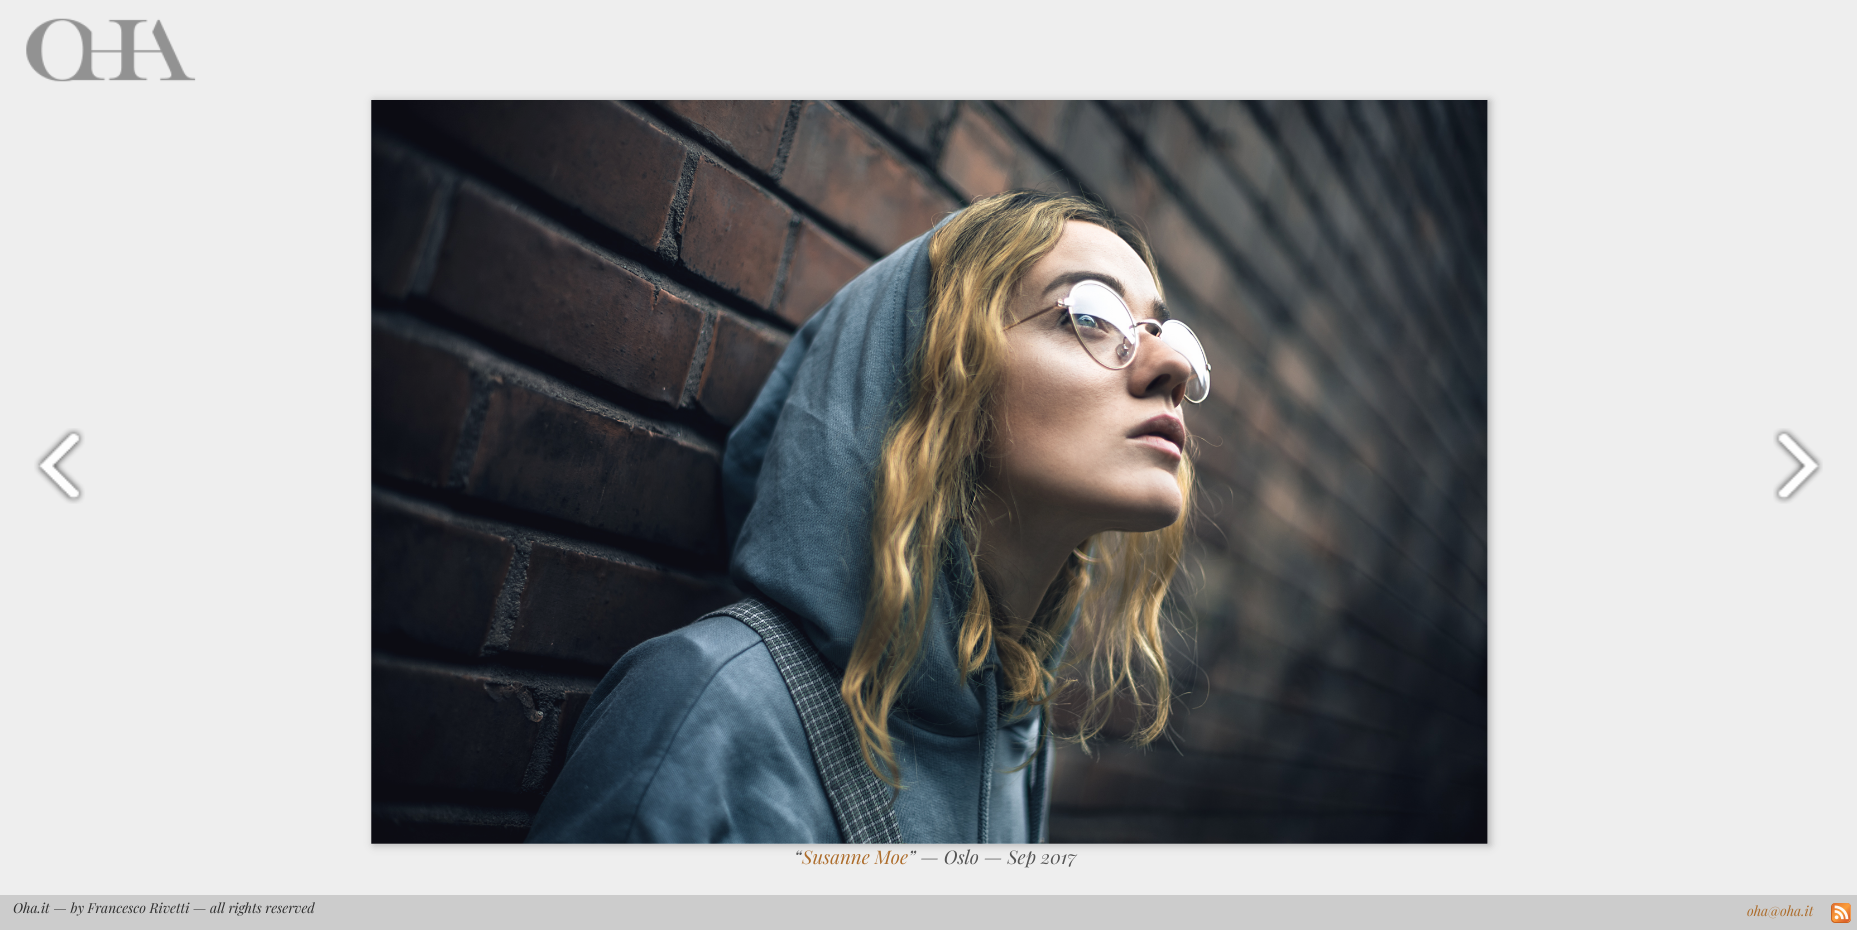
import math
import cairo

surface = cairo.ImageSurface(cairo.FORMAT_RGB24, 1857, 930)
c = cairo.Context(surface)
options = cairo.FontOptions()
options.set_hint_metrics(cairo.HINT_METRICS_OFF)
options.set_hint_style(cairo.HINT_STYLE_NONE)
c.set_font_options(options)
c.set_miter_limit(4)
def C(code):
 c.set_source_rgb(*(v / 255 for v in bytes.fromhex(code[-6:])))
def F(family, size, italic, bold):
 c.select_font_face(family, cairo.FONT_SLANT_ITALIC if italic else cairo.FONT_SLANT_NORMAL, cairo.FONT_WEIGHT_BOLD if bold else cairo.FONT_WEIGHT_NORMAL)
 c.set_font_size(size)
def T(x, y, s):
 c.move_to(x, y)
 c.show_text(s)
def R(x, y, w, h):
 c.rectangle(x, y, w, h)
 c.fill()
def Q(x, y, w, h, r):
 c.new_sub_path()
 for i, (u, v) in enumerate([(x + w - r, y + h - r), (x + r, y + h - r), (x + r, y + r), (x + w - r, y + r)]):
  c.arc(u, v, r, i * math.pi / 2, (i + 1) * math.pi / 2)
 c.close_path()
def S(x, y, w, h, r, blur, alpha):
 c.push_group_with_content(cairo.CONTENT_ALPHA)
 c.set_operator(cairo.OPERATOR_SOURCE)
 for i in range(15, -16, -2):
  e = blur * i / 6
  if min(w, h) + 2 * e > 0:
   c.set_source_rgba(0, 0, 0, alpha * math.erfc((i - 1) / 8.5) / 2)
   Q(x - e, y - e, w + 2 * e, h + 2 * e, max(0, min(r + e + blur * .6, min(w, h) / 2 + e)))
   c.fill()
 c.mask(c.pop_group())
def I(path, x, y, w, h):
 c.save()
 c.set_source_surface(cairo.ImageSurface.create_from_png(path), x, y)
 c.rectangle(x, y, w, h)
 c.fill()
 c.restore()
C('eeeeee')
c.paint()
I('1.png',26,18,170,64)
I('2.png',34,428,51,76)
I('3.png',1773,428,50,76)
c.save()
c.set_fill_rule(cairo.FILL_RULE_EVEN_ODD)
c.new_path()
c.move_to(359,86)
c.line_to(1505,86)
c.line_to(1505,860)
c.line_to(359,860)
c.close_path()
c.move_to(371,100)
c.line_to(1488,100)
c.line_to(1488,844)
c.line_to(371,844)
c.close_path()
c.clip()
C('aaaaaa')
S(374,101,1116,744,0,4.5,.95)
c.restore()
I('4.png',371,100,1117,744)
F('Playfair Display',18.75,1,0)
C('555555')
T(794,864,'“')
C('ad6d2c')
T(802,864,'Susanne Moe')
C('555555')
T(908,864,'” — Oslo — Sep 2017')
C('cccccc')
R(0,895,1857,35)
F('Playfair Display',13.75,1,0)
C('303030')
T(13,913,'Oha.it — by Francesco Rivetti — all rights reserved')
C('ad6d2c')
T(1747,916,'oha@oha.it')
I('5.png',1831,903,20,20)
surface.write_to_png('o.png')
